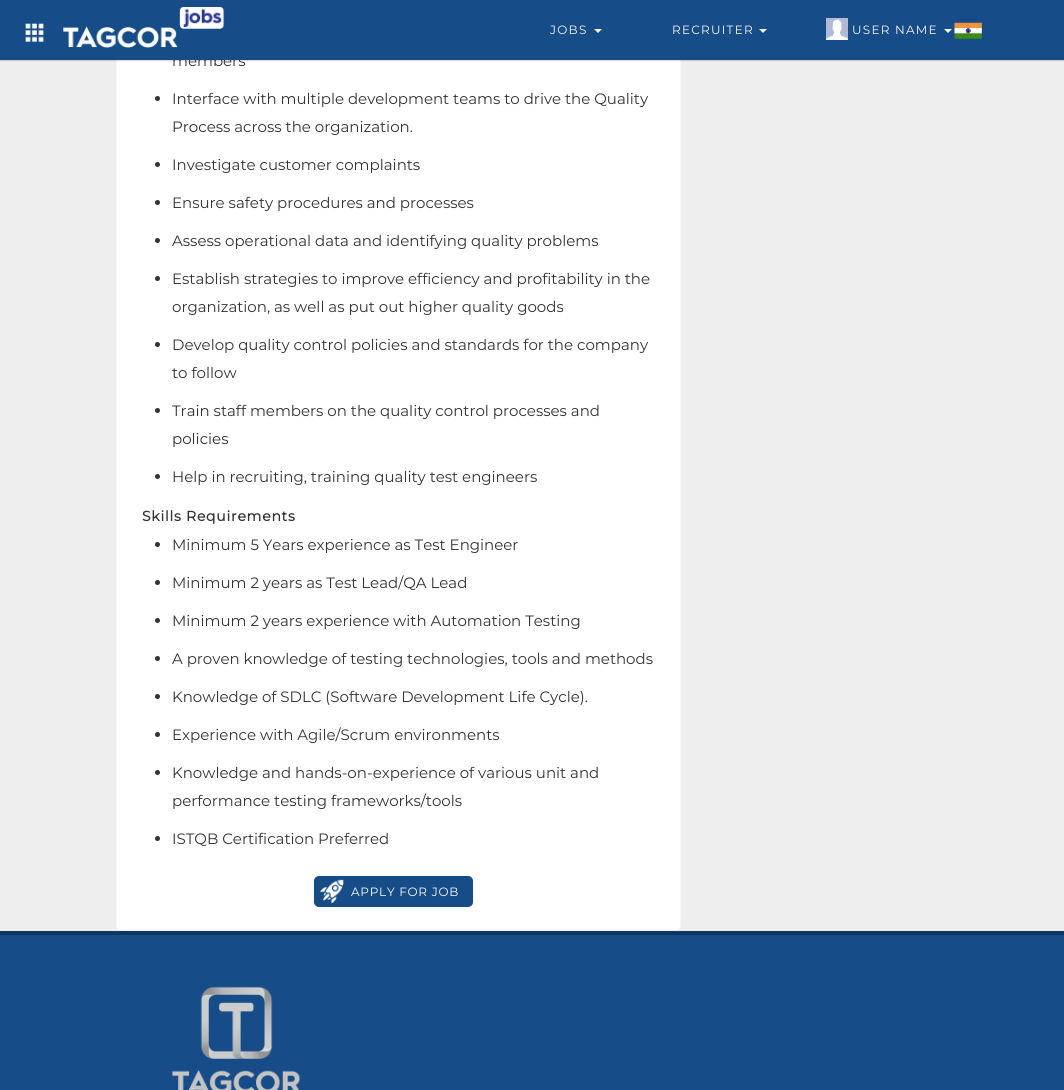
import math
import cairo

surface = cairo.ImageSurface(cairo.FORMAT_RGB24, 1064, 1090)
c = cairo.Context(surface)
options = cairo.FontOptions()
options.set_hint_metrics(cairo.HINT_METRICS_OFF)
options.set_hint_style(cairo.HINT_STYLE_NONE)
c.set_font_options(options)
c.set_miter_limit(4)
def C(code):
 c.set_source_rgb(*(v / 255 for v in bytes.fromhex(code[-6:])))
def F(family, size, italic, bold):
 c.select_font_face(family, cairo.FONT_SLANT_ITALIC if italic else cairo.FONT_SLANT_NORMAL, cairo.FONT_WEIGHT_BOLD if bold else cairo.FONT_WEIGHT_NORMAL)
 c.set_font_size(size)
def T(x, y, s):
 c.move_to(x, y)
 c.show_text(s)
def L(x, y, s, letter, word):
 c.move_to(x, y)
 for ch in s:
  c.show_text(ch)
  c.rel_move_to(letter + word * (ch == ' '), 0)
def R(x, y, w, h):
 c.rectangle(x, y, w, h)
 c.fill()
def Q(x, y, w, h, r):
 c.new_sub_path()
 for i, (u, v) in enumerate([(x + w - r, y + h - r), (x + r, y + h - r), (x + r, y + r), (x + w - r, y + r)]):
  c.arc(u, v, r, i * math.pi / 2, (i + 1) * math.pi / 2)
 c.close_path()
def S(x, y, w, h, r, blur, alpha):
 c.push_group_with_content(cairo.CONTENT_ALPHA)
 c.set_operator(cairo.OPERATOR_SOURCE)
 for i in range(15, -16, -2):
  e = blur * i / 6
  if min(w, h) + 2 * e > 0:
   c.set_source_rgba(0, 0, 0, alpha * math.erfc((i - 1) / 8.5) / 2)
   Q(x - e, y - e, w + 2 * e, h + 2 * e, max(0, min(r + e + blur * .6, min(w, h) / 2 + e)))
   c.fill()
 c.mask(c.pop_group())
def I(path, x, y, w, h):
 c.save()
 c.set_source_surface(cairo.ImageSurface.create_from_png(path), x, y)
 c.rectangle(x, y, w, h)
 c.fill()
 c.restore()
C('eeeeee')
c.paint()
C('ffffff')
Q(116.5,-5.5,564,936,4.5)
c.fill_preserve()
C('f6f7f9')
c.set_line_width(1)
c.stroke()
C('000000')
S(0,1,1064,60,0,.5,.16)
F('Montserrat Thin',15,0,0)
C('333333')
T(172,66,'members')
C('164c88')
R(0,0,1064,60)
I('1.png',25,23,19,19)
I('2.png',63,7,162,41)
F('Montserrat Thin',12,0,0)
C('f9f6f6')
L(550,34,'JOBS',1.25,0)
c.new_path()
c.move_to(594,29)
c.line_to(602,29)
c.line_to(598,33)
c.close_path()
c.fill()
L(672,34,'RECRUITER',1.25,0)
c.new_path()
c.move_to(759,29)
c.line_to(767,29)
c.line_to(763,33)
c.close_path()
c.fill()
I('3.png',826,18,22,22)
L(852,34,'USER NAME',1.25,0)
c.new_path()
c.move_to(944,29)
c.line_to(952,29)
c.line_to(948,33)
c.close_path()
c.fill()
I('4.png',954,22,28,17)
C('333333')
c.arc(157.5,98.5,2.5,0,2 * math.pi)
c.fill()
F('Montserrat Thin',15,0,0)
T(172,104,'Interface with multiple development teams to drive the Quality')
T(172,132,'Process across the organization.')
c.new_path()
c.arc(157.5,164.5,2.5,0,2 * math.pi)
c.fill()
T(172,170,'Investigate customer complaints')
c.new_path()
c.arc(157.5,202.5,2.5,0,2 * math.pi)
c.fill()
T(172,208,'Ensure safety procedures and processes')
c.new_path()
c.arc(157.5,240.5,2.5,0,2 * math.pi)
c.fill()
T(172,246,'Assess operational data and identifying quality problems')
c.new_path()
c.arc(157.5,278.5,2.5,0,2 * math.pi)
c.fill()
T(172,284,'Establish strategies to improve efficiency and profitability in the')
T(172,312,'organization, as well as put out higher quality goods')
c.new_path()
c.arc(157.5,344.5,2.5,0,2 * math.pi)
c.fill()
T(172,350,'Develop quality control policies and standards for the company')
T(172,378,'to follow')
c.new_path()
c.arc(157.5,410.5,2.5,0,2 * math.pi)
c.fill()
T(172,416,'Train staff members on the quality control processes and')
T(172,444,'policies')
c.new_path()
c.arc(157.5,476.5,2.5,0,2 * math.pi)
c.fill()
T(172,482,'Help in recruiting, training quality test engineers')
F('Montserrat',14,0,1)
L(142,521,'Skills Requirements',.75,0)
c.new_path()
c.arc(157.5,544.5,2.5,0,2 * math.pi)
c.fill()
F('Montserrat Thin',15,0,0)
T(172,550,'Minimum 5 Years experience as Test Engineer')
c.new_path()
c.arc(157.5,582.5,2.5,0,2 * math.pi)
c.fill()
T(172,588,'Minimum 2 years as Test Lead/QA Lead')
c.new_path()
c.arc(157.5,620.5,2.5,0,2 * math.pi)
c.fill()
T(172,626,'Minimum 2 years experience with Automation Testing')
c.new_path()
c.arc(157.5,658.5,2.5,0,2 * math.pi)
c.fill()
T(172,664,'A proven knowledge of testing technologies, tools and methods')
c.new_path()
c.arc(157.5,696.5,2.5,0,2 * math.pi)
c.fill()
T(172,702,'Knowledge of SDLC (Software Development Life Cycle).')
c.new_path()
c.arc(157.5,734.5,2.5,0,2 * math.pi)
c.fill()
T(172,740,'Experience with Agile/Scrum environments')
c.new_path()
c.arc(157.5,772.5,2.5,0,2 * math.pi)
c.fill()
T(172,778,'Knowledge and hands-on-experience of various unit and')
T(172,806,'performance testing frameworks/tools')
c.new_path()
c.arc(157.5,838.5,2.5,0,2 * math.pi)
c.fill()
T(172,844,'ISTQB Certification Preferred')
C('164c88')
Q(314.5,876.5,158,30,4.5)
c.fill_preserve()
c.stroke()
I('5.png',320,879,24,25)
F('Montserrat Thin',12,0,0)
C('ffffff')
L(351,896,'APPLY FOR JOB',.75,0)
C('0e3663')
R(0,931,1064,4)
C('164c88')
R(0,935,1064,155)
I('6.png',171,986,130,104)
surface.write_to_png('o.png')
